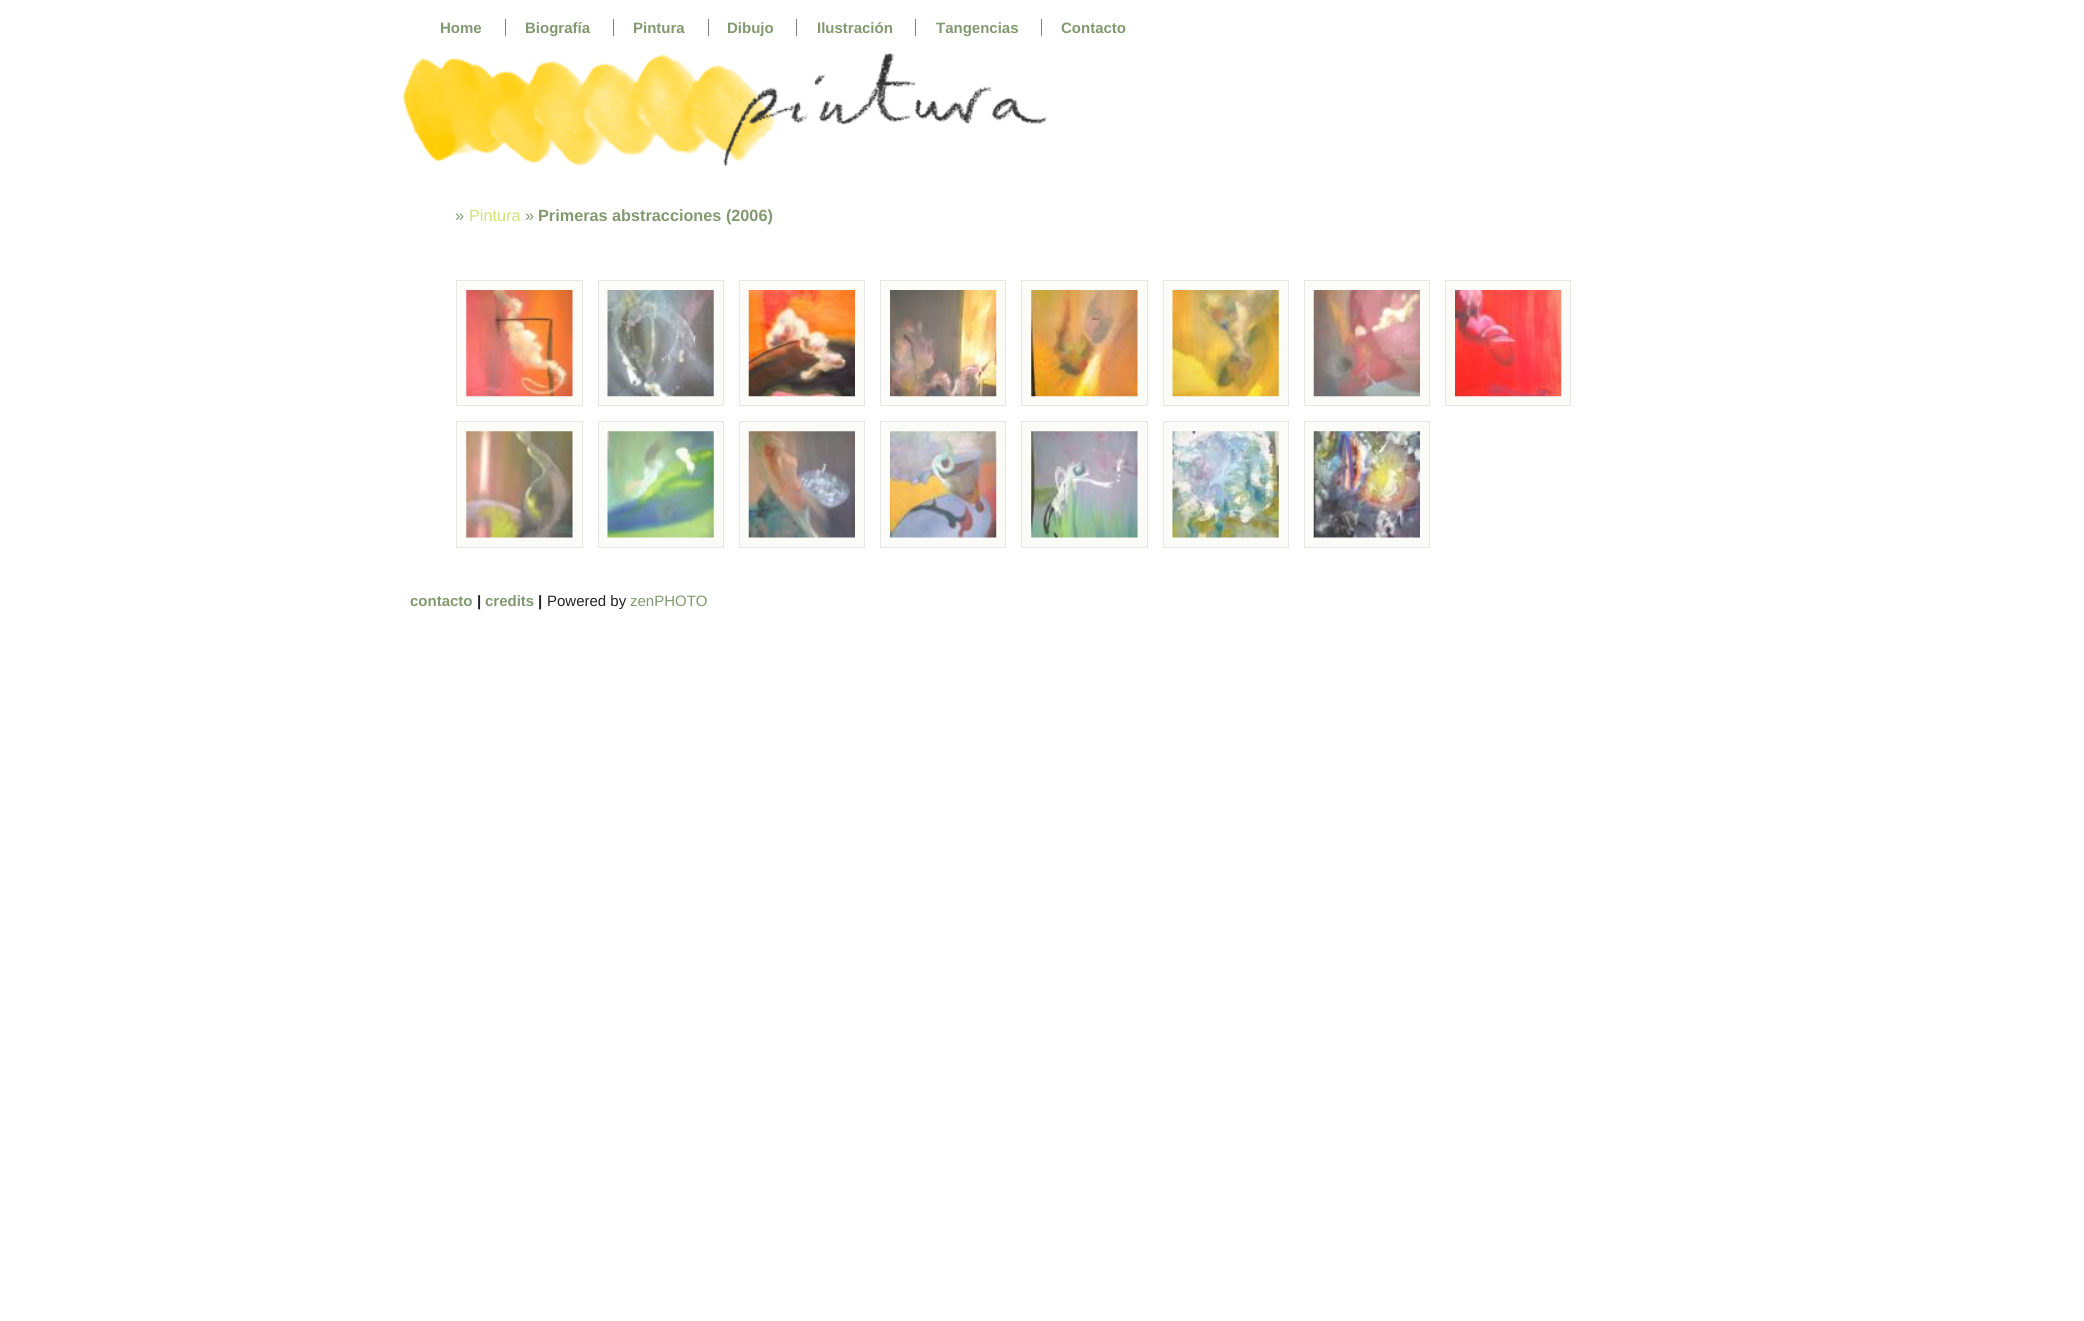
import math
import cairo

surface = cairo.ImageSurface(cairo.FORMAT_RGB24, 2084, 1321)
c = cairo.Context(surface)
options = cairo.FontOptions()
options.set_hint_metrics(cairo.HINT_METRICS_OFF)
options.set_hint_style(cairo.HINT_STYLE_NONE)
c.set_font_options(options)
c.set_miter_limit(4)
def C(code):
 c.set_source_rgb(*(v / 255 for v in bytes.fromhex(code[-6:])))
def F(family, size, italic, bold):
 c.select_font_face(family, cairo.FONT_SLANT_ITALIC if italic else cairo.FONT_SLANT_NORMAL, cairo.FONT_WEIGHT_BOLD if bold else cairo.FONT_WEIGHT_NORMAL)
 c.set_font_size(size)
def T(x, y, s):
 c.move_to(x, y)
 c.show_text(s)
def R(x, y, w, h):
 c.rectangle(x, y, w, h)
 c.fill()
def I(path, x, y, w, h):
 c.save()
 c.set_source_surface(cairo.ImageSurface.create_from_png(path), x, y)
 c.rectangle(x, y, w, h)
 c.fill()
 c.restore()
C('ffffff')
c.paint()
F('Liberation Sans',15,0,1)
C('82996f')
T(440,33,'Home')
T(525,33,'Biografía')
C('808080')
R(505,19,1,17)
C('82996f')
T(633,33,'Pintura')
C('808080')
R(613,19,1,17)
C('82996f')
T(727,33,'Dibujo')
C('808080')
R(708,19,1,17)
C('82996f')
T(817,33,'Ilustración')
C('808080')
R(796,19,1,17)
C('82996f')
T(936,33,'Tangencias')
C('808080')
R(915,19,1,17)
C('82996f')
T(1061,33,'Contacto')
C('808080')
R(1041,19,1,17)
I('1.png',402,53,645,113)
F('Liberation Sans',16.25,0,0)
C('82996f')
T(455,221,'»')
C('d1e079')
T(469,221,'Pintura')
C('82996f')
T(525,221,'»')
F('Liberation Sans',16.25,0,1)
T(538,221,'Primeras abstracciones (2006)')
C('fbfbf8')
c.rectangle(456.5,280.5,126,125)
c.fill_preserve()
C('e6e6e6')
c.set_line_width(1)
c.stroke()
I('2.png',466,290,107,107)
C('fbfbf8')
c.rectangle(598.5,280.5,125,125)
c.fill_preserve()
C('e6e6e6')
c.stroke()
I('3.png',607,290,107,107)
C('fbfbf8')
c.rectangle(739.5,280.5,125,125)
c.fill_preserve()
C('e6e6e6')
c.stroke()
I('4.png',748,290,107,107)
C('fbfbf8')
c.rectangle(880.5,280.5,125,125)
c.fill_preserve()
C('e6e6e6')
c.stroke()
I('5.png',890,290,107,107)
C('fbfbf8')
c.rectangle(1021.5,280.5,126,125)
c.fill_preserve()
C('e6e6e6')
c.stroke()
I('6.png',1031,290,107,107)
C('fbfbf8')
c.rectangle(1163.5,280.5,125,125)
c.fill_preserve()
C('e6e6e6')
c.stroke()
I('7.png',1172,290,107,107)
C('fbfbf8')
c.rectangle(1304.5,280.5,125,125)
c.fill_preserve()
C('e6e6e6')
c.stroke()
I('8.png',1313,290,107,107)
C('fbfbf8')
c.rectangle(1445.5,280.5,125,125)
c.fill_preserve()
C('e6e6e6')
c.stroke()
I('9.png',1455,290,107,107)
C('fbfbf8')
c.rectangle(456.5,421.5,126,126)
c.fill_preserve()
C('e6e6e6')
c.stroke()
I('10.png',466,431,107,107)
C('fbfbf8')
c.rectangle(598.5,421.5,125,126)
c.fill_preserve()
C('e6e6e6')
c.stroke()
I('11.png',607,431,107,107)
C('fbfbf8')
c.rectangle(739.5,421.5,125,126)
c.fill_preserve()
C('e6e6e6')
c.stroke()
I('12.png',748,431,107,107)
C('fbfbf8')
c.rectangle(880.5,421.5,125,126)
c.fill_preserve()
C('e6e6e6')
c.stroke()
I('13.png',890,431,107,107)
C('fbfbf8')
c.rectangle(1021.5,421.5,126,126)
c.fill_preserve()
C('e6e6e6')
c.stroke()
I('14.png',1031,431,107,107)
C('fbfbf8')
c.rectangle(1163.5,421.5,125,126)
c.fill_preserve()
C('e6e6e6')
c.stroke()
I('15.png',1172,431,107,107)
C('fbfbf8')
c.rectangle(1304.5,421.5,125,126)
c.fill_preserve()
C('e6e6e6')
c.stroke()
I('16.png',1313,431,107,107)
F('Liberation Sans',15,0,1)
C('82996f')
T(410,606,'contacto')
C('222222')
T(477,606,'|')
C('82996f')
T(485,606,'credits')
C('222222')
T(538,606,'|')
F('Liberation Sans',15,0,0)
T(547,606,'Powered by')
C('82996f')
T(630,606,'zenPHOTO')
surface.write_to_png('o.png')
